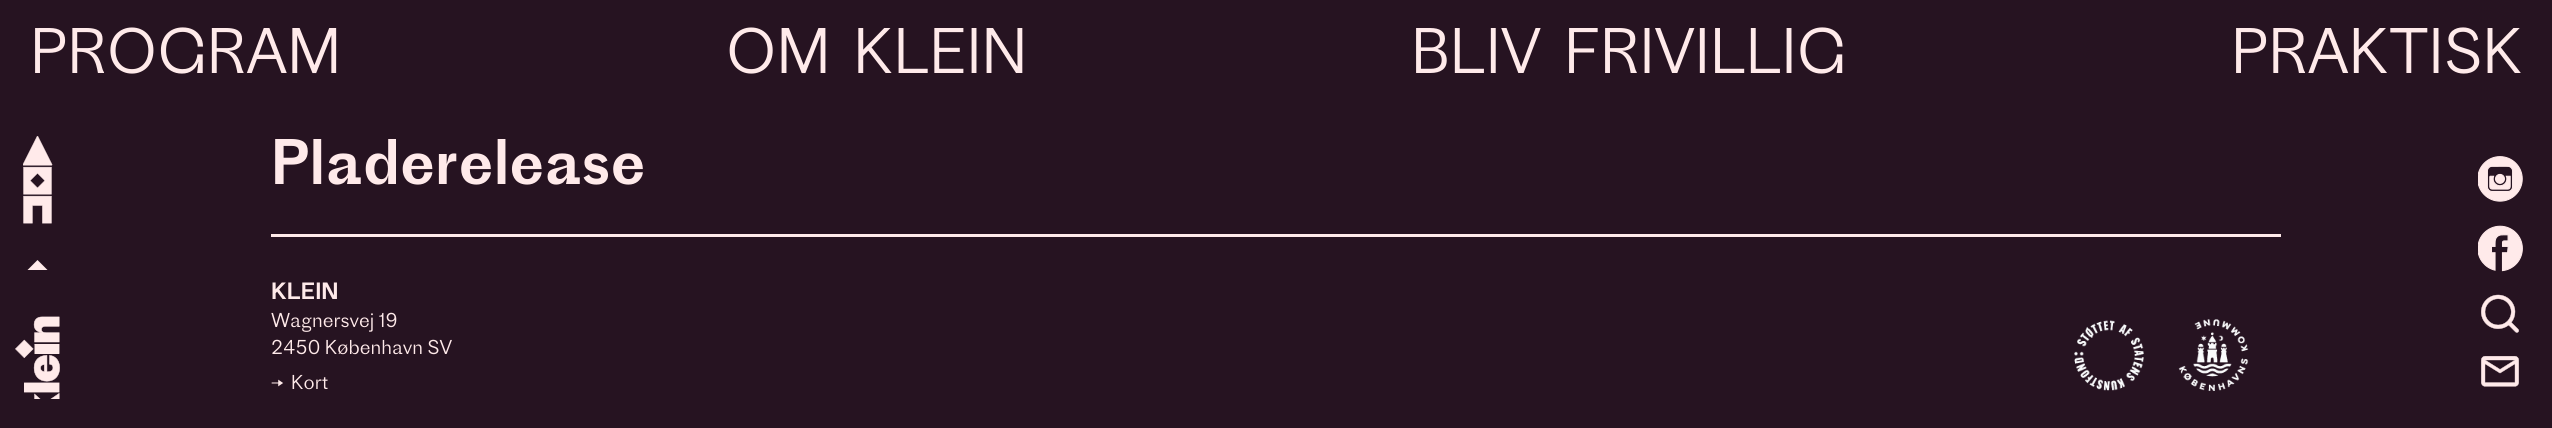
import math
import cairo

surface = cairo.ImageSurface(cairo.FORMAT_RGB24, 2552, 428)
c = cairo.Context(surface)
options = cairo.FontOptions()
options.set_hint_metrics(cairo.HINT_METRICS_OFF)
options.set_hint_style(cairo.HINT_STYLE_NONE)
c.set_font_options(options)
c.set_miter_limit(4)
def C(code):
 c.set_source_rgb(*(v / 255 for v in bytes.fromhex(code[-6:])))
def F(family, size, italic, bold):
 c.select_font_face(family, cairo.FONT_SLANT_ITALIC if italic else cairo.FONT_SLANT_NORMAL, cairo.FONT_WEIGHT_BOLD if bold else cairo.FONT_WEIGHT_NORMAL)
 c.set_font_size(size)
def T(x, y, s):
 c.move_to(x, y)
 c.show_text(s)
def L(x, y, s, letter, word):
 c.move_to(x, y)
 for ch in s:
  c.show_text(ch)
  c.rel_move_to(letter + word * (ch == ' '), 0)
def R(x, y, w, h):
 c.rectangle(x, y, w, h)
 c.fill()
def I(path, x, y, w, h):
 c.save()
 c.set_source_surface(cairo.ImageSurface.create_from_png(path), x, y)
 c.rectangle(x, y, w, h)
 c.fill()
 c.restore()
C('261321')
c.paint()
F('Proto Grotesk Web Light',60,0,0)
C('ffeaea')
T(30,73,'PROGRAM')
L(726,73,'OM KLEIN',0,9)
L(1411,73,'BLIV FRIVILLIG',0,9)
T(2231,73,'PRAKTISK')
F('Proto Grotesk Web',60,0,0)
T(271,184,'Pladerelease')
R(271,234,2010,3)
F('Proto Grotesk Web',22,0,0)
T(271,299,'KLEIN')
F('Proto Grotesk Web Light',18.75,0,0)
T(271,327,'Wagnersvej 19')
T(271,354,'2450 København SV')
T(271,389,'→')
T(291,389,'Kort')
I('1.png',2074,320,70,71)
I('2.png',2178,319,71,72)
I('3.png',2478,156,45,46)
I('4.png',2478,225,45,47)
I('5.png',2481,294,38,39)
I('6.png',2481,356,38,31)
I('7.png',23,136,30,88)
c.new_path()
c.move_to(47.5,270)
c.line_to(27.5,270)
c.line_to(37.5,260)
c.close_path()
c.fill()
I('8.png',15,316,45,83)
surface.write_to_png('o.png')
